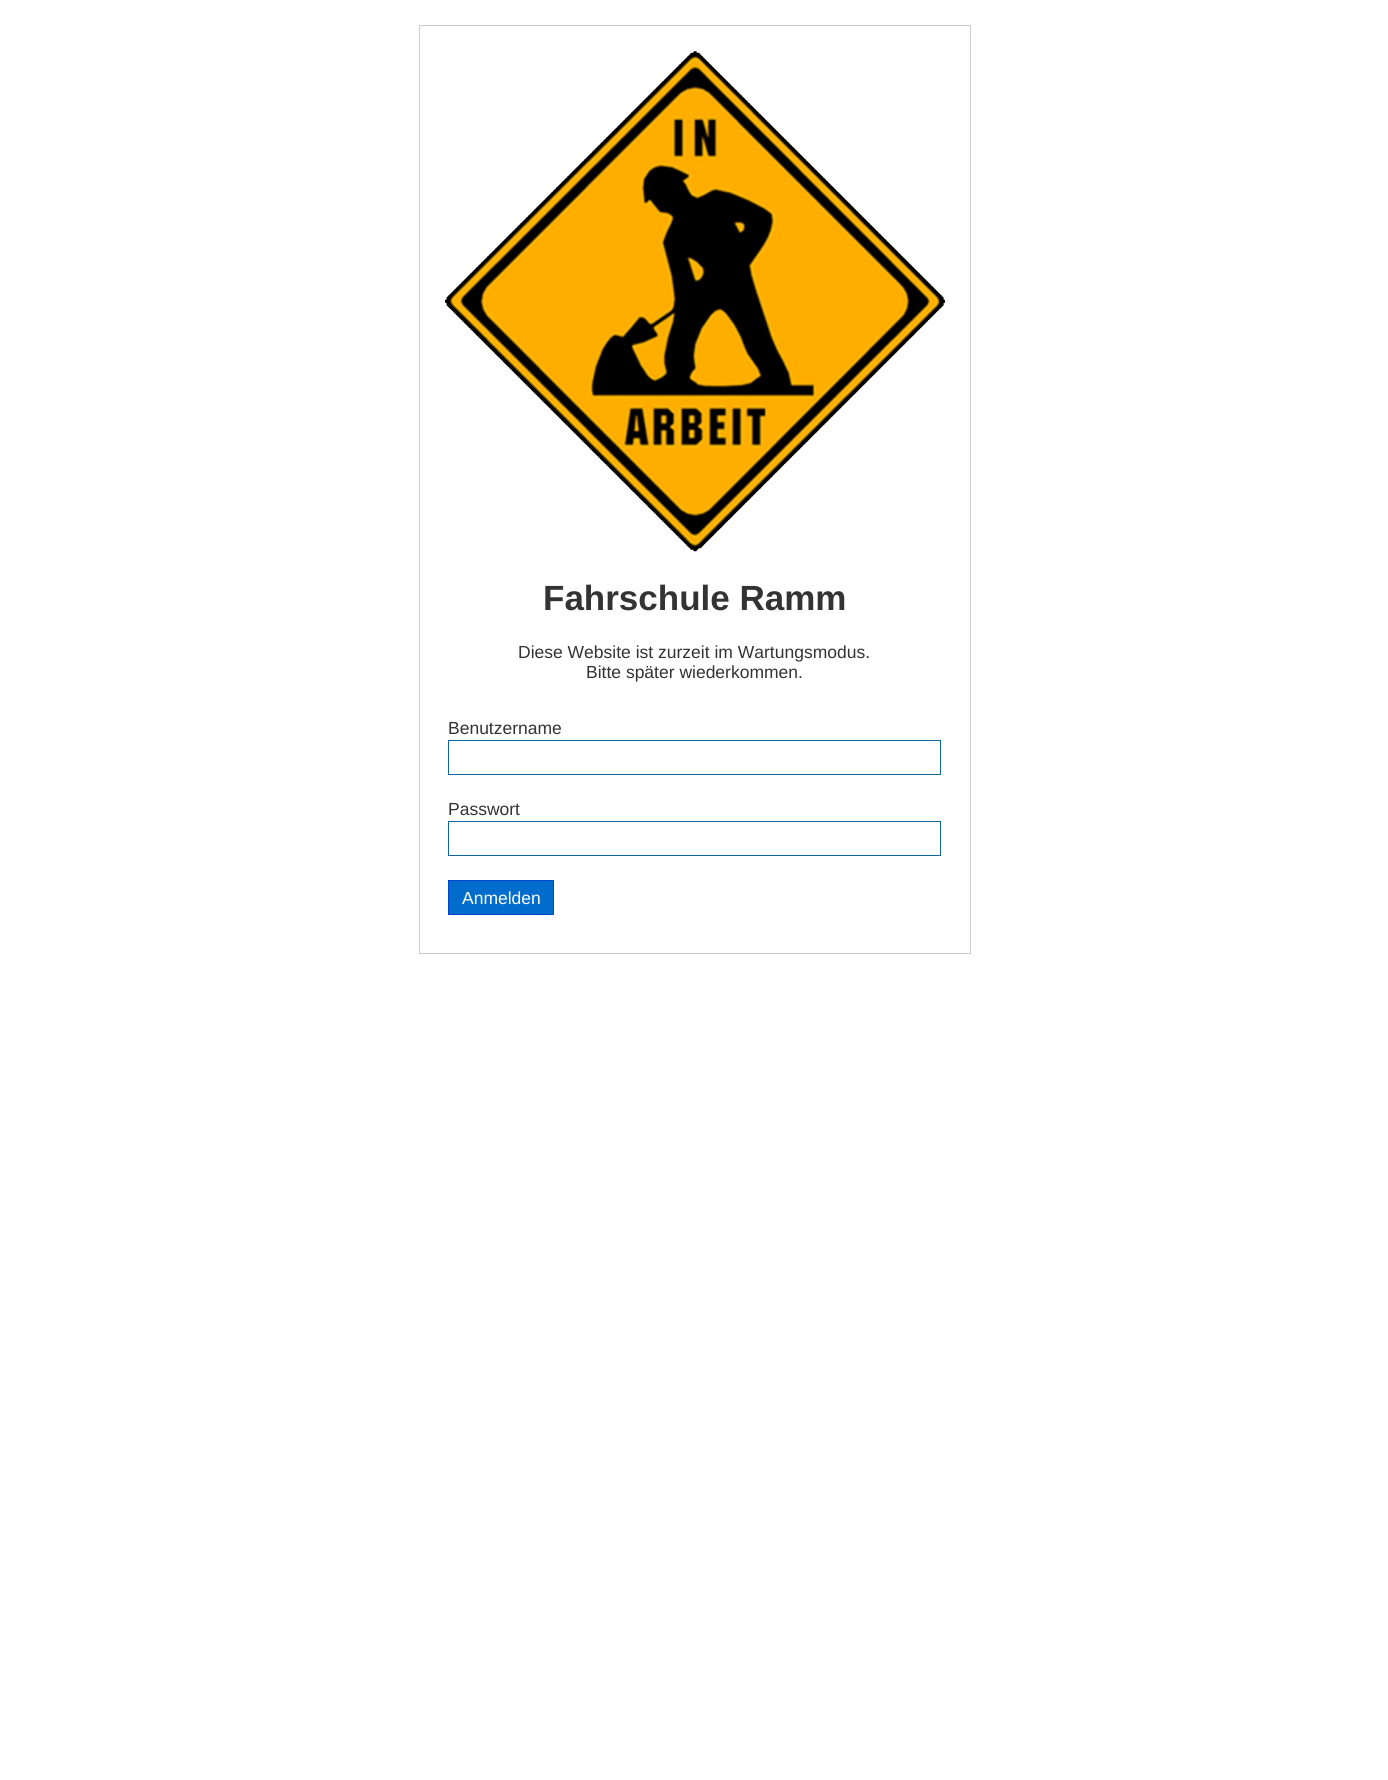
import math
import cairo

surface = cairo.ImageSurface(cairo.FORMAT_RGB24, 1388, 1780)
c = cairo.Context(surface)
options = cairo.FontOptions()
options.set_hint_metrics(cairo.HINT_METRICS_OFF)
options.set_hint_style(cairo.HINT_STYLE_NONE)
c.set_font_options(options)
c.set_miter_limit(4)
def C(code):
 c.set_source_rgb(*(v / 255 for v in bytes.fromhex(code[-6:])))
def F(family, size, italic, bold):
 c.select_font_face(family, cairo.FONT_SLANT_ITALIC if italic else cairo.FONT_SLANT_NORMAL, cairo.FONT_WEIGHT_BOLD if bold else cairo.FONT_WEIGHT_NORMAL)
 c.set_font_size(size)
def T(x, y, s):
 c.move_to(x, y)
 c.show_text(s)
def I(path, x, y, w, h):
 c.save()
 c.set_source_surface(cairo.ImageSurface.create_from_png(path), x, y)
 c.rectangle(x, y, w, h)
 c.fill()
 c.restore()
C('ffffff')
c.paint()
c.rectangle(419.5,25.5,551,928)
C('cccccc')
c.set_line_width(1)
c.stroke()
I('1.png',445,51,500,501)
F('Liberation Sans',35,0,1)
C('333333')
T(543,610,'Fahrschule Ramm')
F('Liberation Sans',17.5,0,0)
T(518,658,'Diese Website ist zurzeit im Wartungsmodus.')
T(586,678,'Bitte später wiederkommen.')
T(448,734,'Benutzername')
c.rectangle(448.5,740.5,492,34)
C('0e67a1')
c.stroke()
C('333333')
T(448,815,'Passwort')
c.rectangle(448.5,821.5,492,34)
C('0e67a1')
c.stroke()
C('006dcc')
c.rectangle(448.5,880.5,105,34)
c.fill_preserve()
C('0044cc')
c.stroke()
C('ffffff')
T(462,904,'Anmelden')
surface.write_to_png('o.png')
